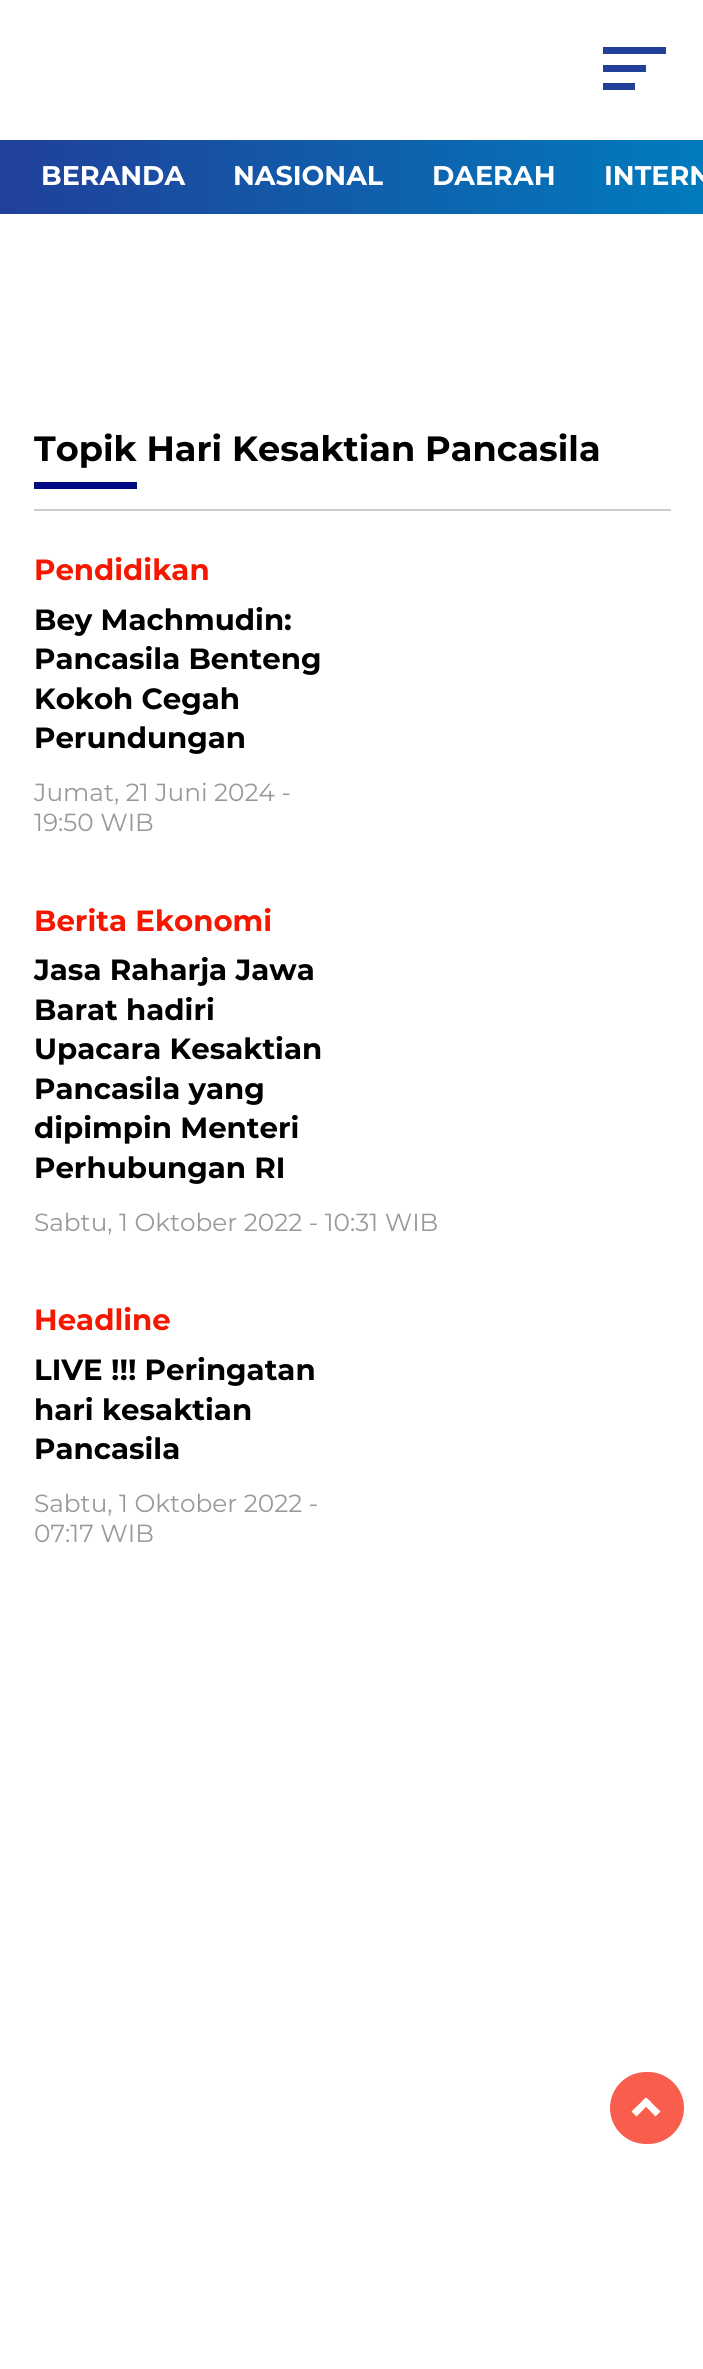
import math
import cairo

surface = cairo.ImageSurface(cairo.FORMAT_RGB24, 703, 2369)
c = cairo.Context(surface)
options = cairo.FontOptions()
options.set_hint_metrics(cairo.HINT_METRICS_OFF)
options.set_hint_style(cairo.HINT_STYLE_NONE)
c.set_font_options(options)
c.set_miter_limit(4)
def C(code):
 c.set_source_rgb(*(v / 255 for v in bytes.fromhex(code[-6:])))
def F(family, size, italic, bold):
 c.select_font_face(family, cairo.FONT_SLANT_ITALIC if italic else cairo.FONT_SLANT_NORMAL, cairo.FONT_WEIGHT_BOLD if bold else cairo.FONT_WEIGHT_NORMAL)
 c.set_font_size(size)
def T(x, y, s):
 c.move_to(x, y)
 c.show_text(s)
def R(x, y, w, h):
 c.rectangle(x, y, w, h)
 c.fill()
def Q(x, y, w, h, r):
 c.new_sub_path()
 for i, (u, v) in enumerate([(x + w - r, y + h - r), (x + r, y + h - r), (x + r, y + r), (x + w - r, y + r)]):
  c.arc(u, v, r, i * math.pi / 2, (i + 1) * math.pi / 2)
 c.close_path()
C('ffffff')
c.paint()
C('21409a')
R(603,47,63,7)
R(603,65,43,7)
R(603,83,32,7)
gradient = cairo.LinearGradient(0,177,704,177)
gradient.add_color_stop_rgba(0,0.129,0.251,0.604,1)
gradient.add_color_stop_rgba(1,0.004,0.482,0.741,1)
c.set_source(gradient)
R(0,140,703,74)
F('Montserrat',27,0,1)
C('ffffff')
T(41,185,'BERANDA')
T(233,185,'NASIONAL')
T(432,185,'DAERAH')
T(604,185,'INTERN')
C('cccccc')
R(34,509,637,2)
F('Montserrat',35.1,0,1)
C('000000')
T(34,461,'Topik Hari Kesaktian Pancasila')
C('010a80')
R(34,482,103,7)
F('Montserrat',29.25,0,1)
C('f51700')
T(34,580,'Pendidikan')
C('000000')
T(34,630,'Bey Machmudin:')
T(34,669,'Pancasila Benteng')
T(34,709,'Kokoh Cegah')
T(34,748,'Perundungan')
F('Montserrat',24.75,0,0)
C('999999')
T(34,801,'Jumat, 21 Juni 2024 -')
T(34,831,'19:50 WIB')
F('Montserrat',29.25,0,1)
C('f51700')
T(34,931,'Berita Ekonomi')
C('000000')
T(34,980,'Jasa Raharja Jawa')
T(34,1020,'Barat hadiri')
T(34,1059,'Upacara Kesaktian')
T(34,1099,'Pancasila yang')
T(34,1138,'dipimpin Menteri')
T(34,1178,'Perhubungan RI')
F('Montserrat',24.75,0,0)
C('999999')
T(34,1231,'Sabtu, 1 Oktober 2022 - 10:31 WIB')
F('Montserrat',29.25,0,1)
C('f51700')
T(34,1330,'Headline')
C('000000')
T(34,1380,'LIVE !!! Peringatan')
T(34,1420,'hari kesaktian')
T(34,1459,'Pancasila')
F('Montserrat',24.75,0,0)
C('999999')
T(34,1512,'Sabtu, 1 Oktober 2022 -')
T(34,1542,'07:17 WIB')
C('f85d4d')
Q(610,2072,74,72,36)
c.fill()
C('ffffff')
c.new_path()
c.move_to(636.5,2116.5)
c.line_to(631.5,2111.5)
c.line_to(646,2097.5)
c.line_to(651,2102)
c.close_path()
c.fill()
c.new_path()
c.move_to(655.5,2116.5)
c.line_to(641.5,2102)
c.line_to(646,2097.5)
c.line_to(660.5,2111.5)
c.close_path()
c.fill()
surface.write_to_png('o.png')
